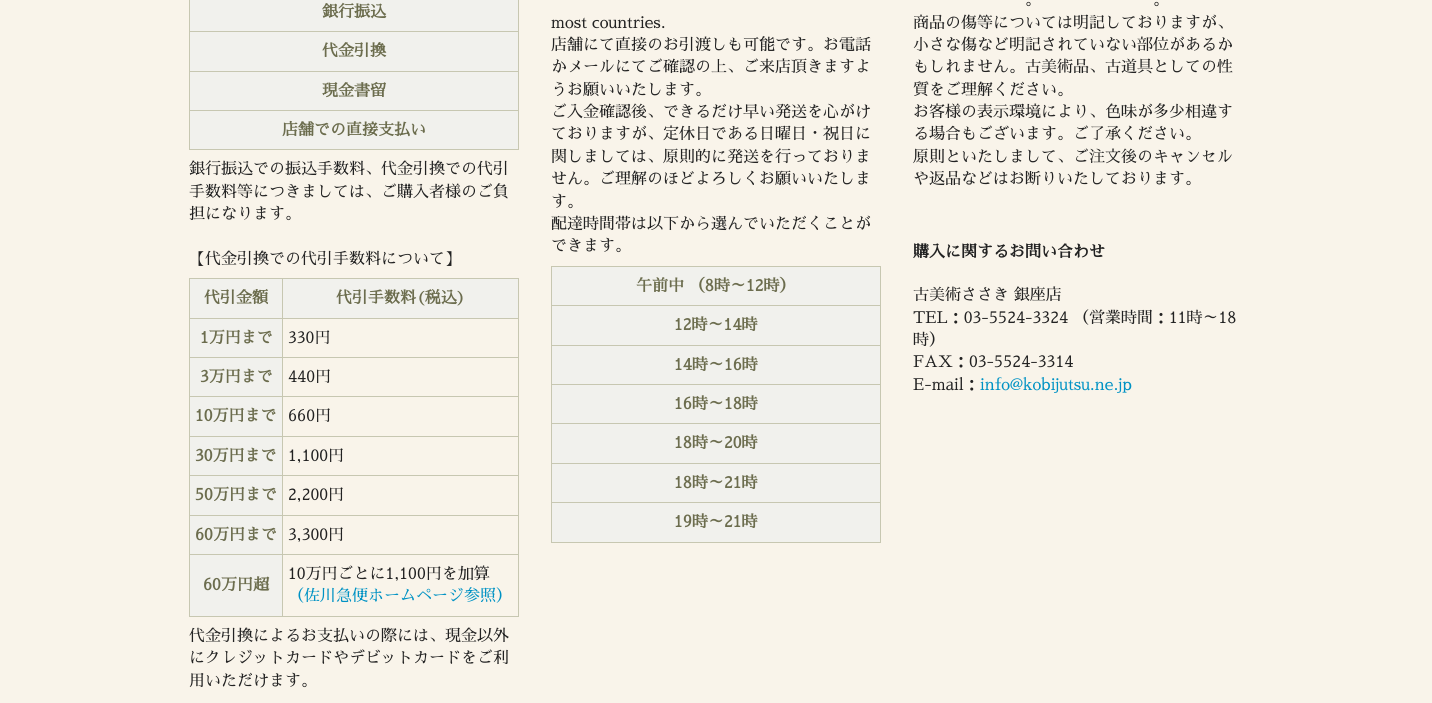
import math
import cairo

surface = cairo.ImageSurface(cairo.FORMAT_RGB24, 1432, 703)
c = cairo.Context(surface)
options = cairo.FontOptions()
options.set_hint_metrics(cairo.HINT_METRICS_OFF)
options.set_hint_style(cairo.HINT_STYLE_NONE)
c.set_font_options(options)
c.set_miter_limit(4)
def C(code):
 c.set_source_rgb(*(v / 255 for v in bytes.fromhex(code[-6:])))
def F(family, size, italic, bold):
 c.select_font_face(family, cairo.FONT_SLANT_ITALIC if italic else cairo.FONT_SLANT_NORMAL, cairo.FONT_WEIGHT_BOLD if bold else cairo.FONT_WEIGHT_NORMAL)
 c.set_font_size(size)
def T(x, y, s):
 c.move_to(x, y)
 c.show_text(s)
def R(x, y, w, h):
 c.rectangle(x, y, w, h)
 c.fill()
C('f9f4ea')
c.paint()
C('c7c7b1')
R(518,0,1,150)
R(189,149,330,1)
R(189,0,1,150)
C('f1f1ed')
R(190,0,328,31)
F('Sawarabi Mincho',16,0,1)
C('6c6d4e')
T(322,17,'銀行振込')
C('f1f1ed')
R(190,32,328,39)
C('c7c7b1')
R(189,31,330,1)
C('6c6d4e')
T(322,56,'代金引換')
C('f1f1ed')
R(190,72,328,38)
C('c7c7b1')
R(189,71,330,1)
C('6c6d4e')
T(322,96,'現金書留')
C('f1f1ed')
R(190,111,328,38)
C('c7c7b1')
R(189,110,330,1)
C('6c6d4e')
T(282,135,'店舗での直接支払い')
F('Sawarabi Mincho',16,0,0)
C('222222')
T(189,174,'銀行振込での振込手数料、代金引換での代引')
T(189,197,'手数料等につきましては、ご購入者様のご負')
T(189,219,'担になります。')
T(189,264,'【代金引換での代引手数料について】')
C('c7c7b1')
R(189,278,330,1)
R(518,278,1,339)
R(189,616,330,1)
R(189,278,1,339)
C('f1f1ed')
R(190,279,92,39)
F('Sawarabi Mincho',16,0,1)
C('6c6d4e')
T(204,303,'代引金額')
C('f1f1ed')
R(283,279,235,39)
C('c7c7b1')
R(282,318,237,1)
R(282,357,237,1)
R(282,396,237,1)
R(282,436,237,1)
R(282,475,237,1)
R(282,515,237,1)
R(282,554,237,1)
R(282,554,1,63)
R(189,554,94,1)
R(282,515,1,40)
R(189,515,94,1)
R(282,475,1,41)
R(189,475,94,1)
R(282,436,1,40)
R(189,436,94,1)
R(282,396,1,41)
R(189,396,94,1)
R(282,357,1,40)
R(189,357,94,1)
R(282,318,1,40)
R(189,318,94,1)
R(282,278,1,41)
C('6c6d4e')
T(336,303,'代引手数料(税込)')
C('f1f1ed')
R(190,319,92,38)
C('6c6d4e')
T(200,343,'1万円まで')
F('Sawarabi Mincho',16,0,0)
C('222222')
T(288,343,'330円')
C('f1f1ed')
R(190,358,92,38)
F('Sawarabi Mincho',16,0,1)
C('6c6d4e')
T(200,382,'3万円まで')
F('Sawarabi Mincho',16,0,0)
C('222222')
T(288,382,'440円')
C('f1f1ed')
R(190,397,92,39)
F('Sawarabi Mincho',16,0,1)
C('6c6d4e')
T(195,421,'10万円まで')
F('Sawarabi Mincho',16,0,0)
C('222222')
T(288,421,'660円')
C('f1f1ed')
R(190,437,92,38)
F('Sawarabi Mincho',16,0,1)
C('6c6d4e')
T(195,461,'30万円まで')
F('Sawarabi Mincho',16,0,0)
C('222222')
T(288,461,'1,100円')
C('f1f1ed')
R(190,476,92,39)
F('Sawarabi Mincho',16,0,1)
C('6c6d4e')
T(195,500,'50万円まで')
F('Sawarabi Mincho',16,0,0)
C('222222')
T(288,500,'2,200円')
C('f1f1ed')
R(190,516,92,38)
F('Sawarabi Mincho',16,0,1)
C('6c6d4e')
T(195,540,'60万円まで')
F('Sawarabi Mincho',16,0,0)
C('222222')
T(288,540,'3,300円')
C('f1f1ed')
R(190,555,92,61)
F('Sawarabi Mincho',16,0,1)
C('6c6d4e')
T(203,590,'60万円超')
F('Sawarabi Mincho',16,0,0)
C('222222')
T(288,579,'10万円ごとに1,100円を加算')
C('0092c4')
T(288,601,'（佐川急便ホームページ参照）')
C('222222')
T(189,641,'代金引換によるお支払いの際には、現金以外')
T(189,663,'にクレジットカードやデビットカードをご利')
T(189,686,'用いただけます。')
T(551,28,'most countries.')
T(551,50,'店舗にて直接のお引渡しも可能です。お電話')
T(551,72,'かメールにてご確認の上、ご来店頂きますよ')
T(551,95,'うお願いいたします。')
T(551,117,'ご入金確認後、できるだけ早い発送を心がけ')
T(551,139,'ておりますが、定休日である日曜日・祝日に')
T(551,162,'関しましては、原則的に発送を行っておりま')
T(551,184,'せん。ご理解のほどよろしくお願いいたしま')
T(551,207,'す。')
T(551,229,'配達時間帯は以下から選んでいただくことが')
T(551,251,'できます。')
C('c7c7b1')
R(551,266,330,1)
R(880,266,1,277)
R(551,542,330,1)
R(551,266,1,277)
C('f1f1ed')
R(552,267,328,38)
F('Sawarabi Mincho',16,0,1)
C('6c6d4e')
T(636,291,'午前中 （8時～12時）')
C('f1f1ed')
R(552,306,328,39)
C('c7c7b1')
R(551,305,330,1)
C('6c6d4e')
T(674,330,'12時～14時')
C('f1f1ed')
R(552,346,328,38)
C('c7c7b1')
R(551,345,330,1)
C('6c6d4e')
T(674,370,'14時～16時')
C('f1f1ed')
R(552,385,328,38)
C('c7c7b1')
R(551,384,330,1)
C('6c6d4e')
T(674,409,'16時～18時')
C('f1f1ed')
R(552,424,328,39)
C('c7c7b1')
R(551,423,330,1)
C('6c6d4e')
T(674,448,'18時～20時')
C('f1f1ed')
R(552,464,328,38)
C('c7c7b1')
R(551,463,330,1)
C('6c6d4e')
T(674,488,'18時～21時')
C('f1f1ed')
R(552,503,328,39)
C('c7c7b1')
R(551,502,330,1)
C('6c6d4e')
T(674,527,'19時～21時')
F('Sawarabi Mincho',16,0,0)
C('222222')
T(1025,5,'。')
T(1153,5,'。')
T(913,28,'商品の傷等については明記しておりますが、')
T(913,50,'小さな傷など明記されていない部位があるか')
T(913,72,'もしれません。古美術品、古道具としての性')
T(913,95,'質をご理解ください。')
T(913,117,'お客様の表示環境により、色味が多少相違す')
T(913,139,'る場合もございます。ご了承ください。')
T(913,162,'原則といたしまして、ご注文後のキャンセル')
T(913,184,'や返品などはお断りいたしております。')
F('Sawarabi Mincho',16,0,1)
T(913,257,'購入に関するお問い合わせ')
F('Sawarabi Mincho',16,0,0)
T(913,300,'古美術ささき 銀座店')
T(913,323,'TEL：03-5524-3324 （営業時間：11時～18')
T(913,345,'時）')
T(913,367,'FAX：03-5524-3314')
T(913,390,'E-mail：')
C('0092c4')
T(980,390,'info@kobijutsu.ne.jp')
surface.write_to_png('o.png')
